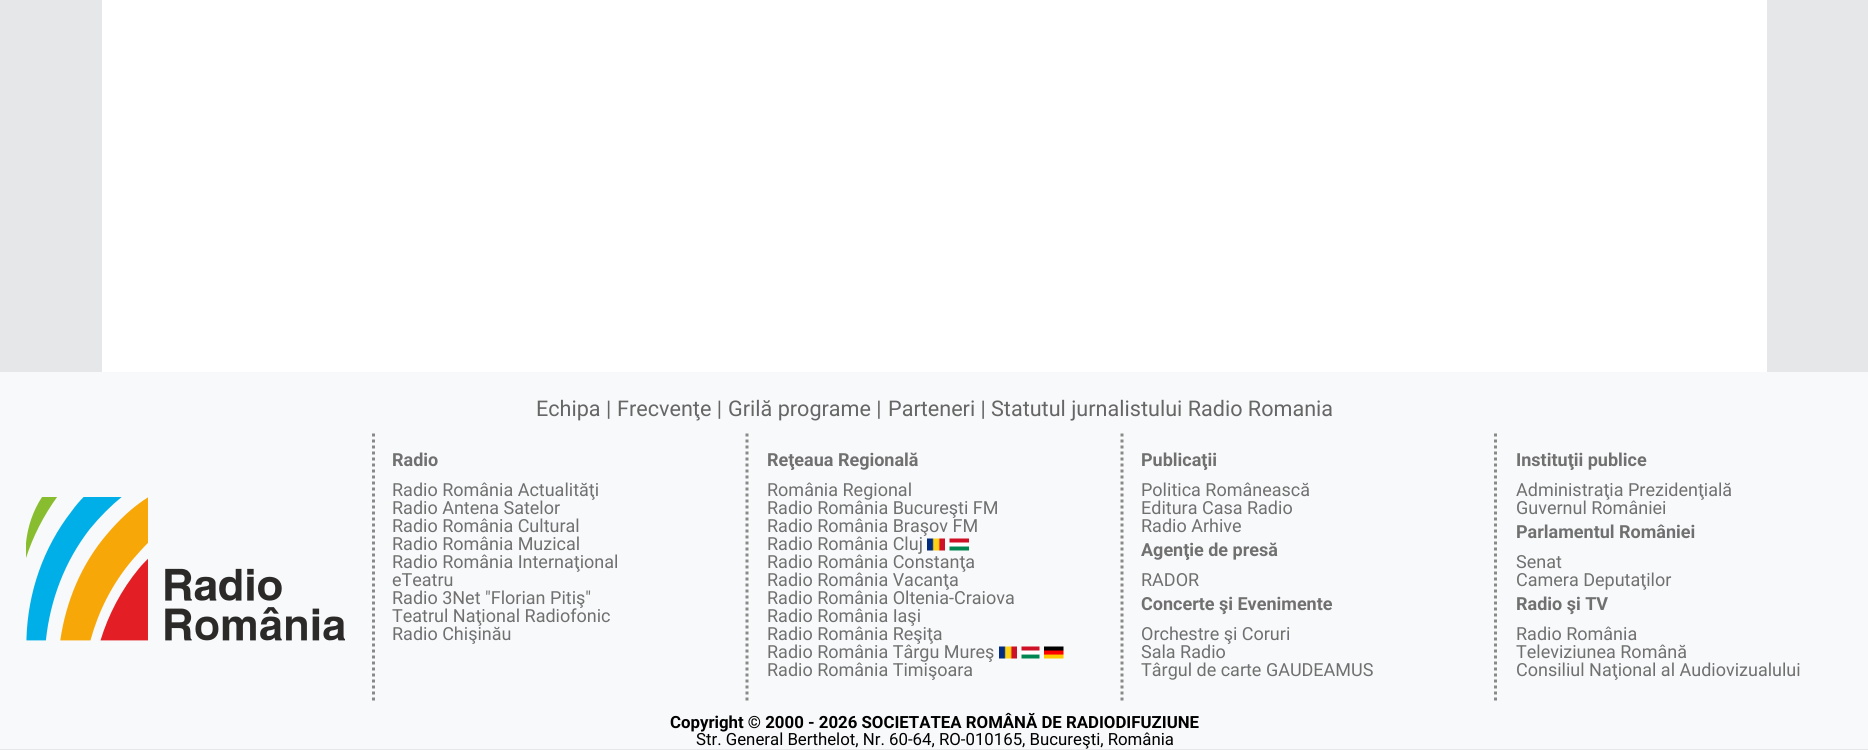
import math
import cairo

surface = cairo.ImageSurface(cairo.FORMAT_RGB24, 1868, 750)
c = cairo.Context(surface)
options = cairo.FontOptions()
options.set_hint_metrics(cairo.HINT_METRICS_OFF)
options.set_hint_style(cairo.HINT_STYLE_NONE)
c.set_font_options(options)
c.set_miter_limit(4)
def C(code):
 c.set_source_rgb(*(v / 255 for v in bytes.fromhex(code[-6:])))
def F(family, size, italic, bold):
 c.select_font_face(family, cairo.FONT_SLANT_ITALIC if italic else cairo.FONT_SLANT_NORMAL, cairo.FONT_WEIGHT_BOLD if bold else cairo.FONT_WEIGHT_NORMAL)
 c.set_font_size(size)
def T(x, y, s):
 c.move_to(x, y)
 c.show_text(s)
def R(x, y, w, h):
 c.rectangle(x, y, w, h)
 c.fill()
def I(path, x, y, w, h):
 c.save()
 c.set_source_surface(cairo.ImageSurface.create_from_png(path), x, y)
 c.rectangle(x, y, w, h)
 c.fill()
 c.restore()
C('e6e7e9')
c.paint()
C('ffffff')
R(102,0,1665,372)
C('f8f9fa')
R(0,372,1868,377)
F('Roboto',21.6,0,0)
C('666666')
T(536,416,'Echipa |')
T(617,416,'Frecvenţe |')
T(728,416,'Grilă programe |')
T(888,416,'Parteneri |')
T(991,416,'Statutul jurnalistului Radio Romania')
I('1.png',26,497,319,144)
c.new_path()
c.move_to(373.5,433.5)
c.line_to(373.5,703.5)
C('898989')
c.set_line_width(3)
c.set_dash([3,3])
c.stroke()
F('Roboto',18,0,1)
C('707070')
T(392,466,'Radio')
F('Roboto',18,0,0)
T(392,496,'Radio România Actualităţi')
T(392,514,'Radio Antena Satelor')
T(392,532,'Radio România Cultural')
T(392,550,'Radio România Muzical')
T(392,568,'Radio România Internaţional')
T(392,586,'eTeatru')
T(392,604,'Radio 3Net "Florian Pitiş"')
T(392,622,'Teatrul Naţional Radiofonic')
T(392,640,'Radio Chişinău')
c.new_path()
c.move_to(747,433.5)
c.line_to(747,703.5)
C('898989')
c.stroke()
F('Roboto',18,0,1)
C('707070')
T(767,466,'Reţeaua Regională')
F('Roboto',18,0,0)
T(767,496,'România Regional')
T(767,514,'Radio România Bucureşti FM')
T(767,532,'Radio România Braşov FM')
T(767,550,'Radio România Cluj')
I('2.png',927,538,18,13)
I('3.png',949,538,20,13)
T(767,568,'Radio România Constanţa')
T(767,586,'Radio România Vacanţa')
T(767,604,'Radio România Oltenia-Craiova')
T(767,622,'Radio România Iaşi')
T(767,640,'Radio România Reşiţa')
T(767,658,'Radio România Târgu Mureş')
I('2.png',999,646,18,13)
I('4.png',1021,646,19,13)
I('5.png',1044,646,20,13)
T(767,676,'Radio România Timişoara')
c.new_path()
c.move_to(1122,433.5)
c.line_to(1122,703.5)
C('898989')
c.stroke()
F('Roboto',18,0,1)
C('707070')
T(1141,466,'Publicaţii')
F('Roboto',18,0,0)
T(1141,496,'Politica Românească')
T(1141,514,'Editura Casa Radio')
T(1141,532,'Radio Arhive')
F('Roboto',18,0,1)
T(1141,556,'Agenţie de presă')
F('Roboto',18,0,0)
T(1141,586,'RADOR')
F('Roboto',18,0,1)
T(1141,610,'Concerte şi Evenimente')
F('Roboto',18,0,0)
T(1141,640,'Orchestre şi Coruri')
T(1141,658,'Sala Radio')
T(1141,676,'Târgul de carte GAUDEAMUS')
c.new_path()
c.move_to(1495.5,433.5)
c.line_to(1495.5,703.5)
C('898989')
c.stroke()
F('Roboto',18,0,1)
C('707070')
T(1516,466,'Instituţii publice')
F('Roboto',18,0,0)
T(1516,496,'Administraţia Prezidenţială')
T(1516,514,'Guvernul României')
F('Roboto',18,0,1)
T(1516,538,'Parlamentul României')
F('Roboto',18,0,0)
T(1516,568,'Senat')
T(1516,586,'Camera Deputaţilor')
F('Roboto',18,0,1)
T(1516,610,'Radio şi TV')
F('Roboto',18,0,0)
T(1516,640,'Radio România')
T(1516,658,'Televiziunea Română')
T(1516,676,'Consiliul Naţional al Audiovizualului')
F('Roboto',16.8,0,1)
C('000000')
T(670,728,'Copyright © 2000 - 2026 SOCIETATEA ROMÂNĂ DE RADIODIFUZIUNE')
F('Roboto',16.8,0,0)
T(696,745,'Str. General Berthelot, Nr. 60-64, RO-010165, Bucureşti, România')
surface.write_to_png('o.png')
